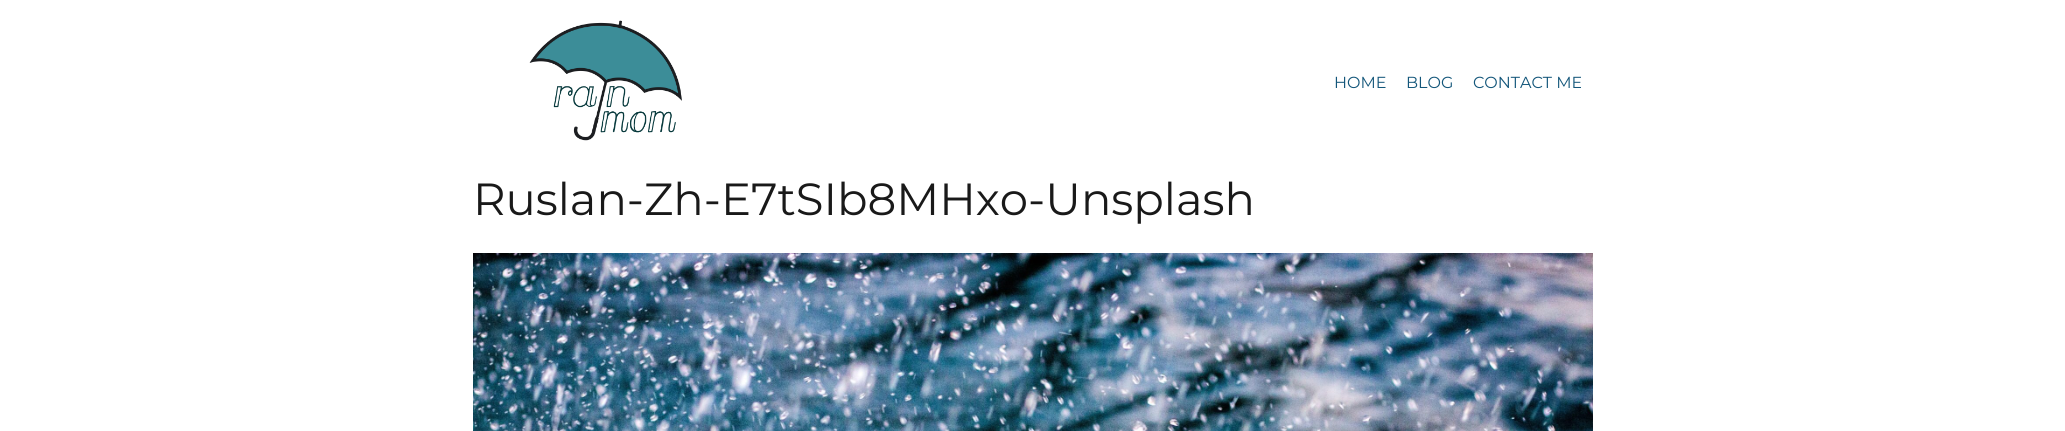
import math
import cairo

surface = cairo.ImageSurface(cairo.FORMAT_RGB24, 2065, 431)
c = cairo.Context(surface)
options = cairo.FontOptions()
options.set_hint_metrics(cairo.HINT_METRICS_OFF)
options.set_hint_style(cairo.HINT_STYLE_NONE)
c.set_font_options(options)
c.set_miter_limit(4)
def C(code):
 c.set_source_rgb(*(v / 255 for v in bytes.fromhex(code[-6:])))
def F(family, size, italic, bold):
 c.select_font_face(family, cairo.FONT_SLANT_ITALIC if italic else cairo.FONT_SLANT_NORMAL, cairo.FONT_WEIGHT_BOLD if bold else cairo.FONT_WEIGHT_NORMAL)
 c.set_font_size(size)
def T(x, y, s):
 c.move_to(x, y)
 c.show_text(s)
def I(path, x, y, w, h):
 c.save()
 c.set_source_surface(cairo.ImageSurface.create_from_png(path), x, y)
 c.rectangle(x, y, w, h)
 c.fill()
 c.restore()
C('ffffff')
c.paint()
I('1.png',529,20,153,121)
F('Montserrat Thin',16,0,0)
C('13567a')
T(1334,88,'HOME')
T(1406,88,'BLOG')
T(1473,88,'CONTACT ME')
F('Montserrat Thin',45,0,0)
C('191919')
T(473,215,'Ruslan-Zh-E7tSIb8MHxo-Unsplash')
I('2.png',473,253,1120,178)
surface.write_to_png('o.png')
